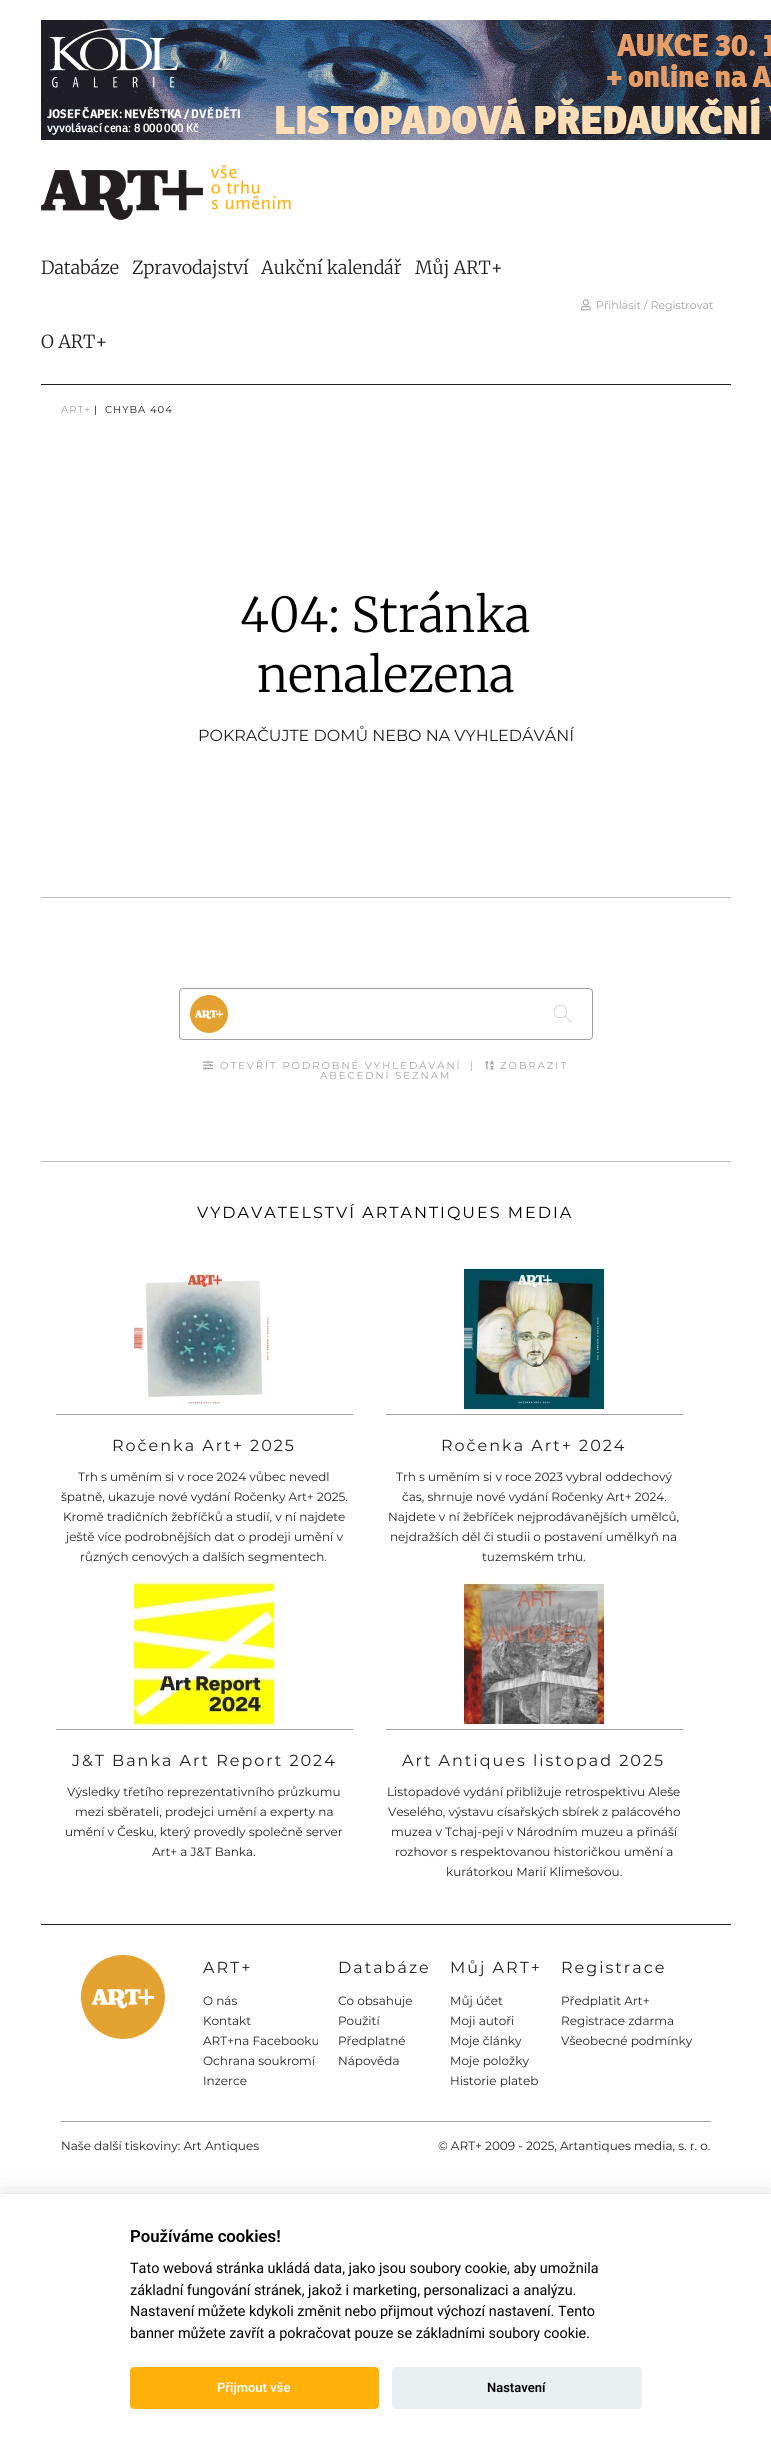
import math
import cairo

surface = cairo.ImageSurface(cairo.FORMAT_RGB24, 771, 2441)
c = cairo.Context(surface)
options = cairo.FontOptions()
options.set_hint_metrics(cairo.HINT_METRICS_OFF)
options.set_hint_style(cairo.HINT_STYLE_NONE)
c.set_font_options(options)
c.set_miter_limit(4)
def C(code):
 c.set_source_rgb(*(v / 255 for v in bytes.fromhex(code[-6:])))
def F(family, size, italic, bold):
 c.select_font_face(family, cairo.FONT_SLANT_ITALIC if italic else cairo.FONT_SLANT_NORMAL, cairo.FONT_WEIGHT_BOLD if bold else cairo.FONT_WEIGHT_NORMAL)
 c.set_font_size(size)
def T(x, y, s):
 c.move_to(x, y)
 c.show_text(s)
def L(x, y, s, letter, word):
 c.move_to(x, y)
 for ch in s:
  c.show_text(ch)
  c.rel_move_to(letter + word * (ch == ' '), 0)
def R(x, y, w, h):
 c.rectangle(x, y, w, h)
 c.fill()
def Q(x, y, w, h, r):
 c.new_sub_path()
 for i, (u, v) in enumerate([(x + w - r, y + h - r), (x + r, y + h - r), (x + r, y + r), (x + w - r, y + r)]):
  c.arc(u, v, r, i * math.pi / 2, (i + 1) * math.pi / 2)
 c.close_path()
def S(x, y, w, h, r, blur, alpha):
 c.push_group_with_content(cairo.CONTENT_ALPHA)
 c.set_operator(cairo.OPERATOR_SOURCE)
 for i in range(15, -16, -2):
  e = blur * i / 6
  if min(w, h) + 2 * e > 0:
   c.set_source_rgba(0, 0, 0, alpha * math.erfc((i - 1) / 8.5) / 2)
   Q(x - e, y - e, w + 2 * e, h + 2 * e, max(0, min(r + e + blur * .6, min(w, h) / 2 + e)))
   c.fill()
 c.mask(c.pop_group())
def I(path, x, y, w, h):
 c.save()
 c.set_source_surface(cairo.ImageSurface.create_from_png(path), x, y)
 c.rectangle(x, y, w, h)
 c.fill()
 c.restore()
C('ffffff')
c.paint()
I('1.png',41,20,730,120)
C('231f20')
R(41,384,690,1)
I('2.png',41,170,162,50)
I('3.png',210,165,81,45)
F('Merriweather Light',18,0,0)
T(41,274,'Databáze')
T(132,274,'Zpravodajství')
T(261,274,'Aukční kalendář')
T(415,274,'Můj ART+')
T(41,348,'O ART+')
I('4.png',581,299,10,12)
F('Montserrat',11,0,0)
C('9fa1a4')
T(596,309,'Přihlásit / Registrovat')
F('Montserrat',10,0,0)
L(61,413,'ART+',1,0)
C('000000')
L(94,413,'|',1,0)
C('231f20')
L(105,413,'CHYBA 404',1,0)
F('Merriweather Light',48,0,0)
C('000000')
T(240,632,'404: Stránka')
T(257,692,'nenalezena')
F('Montserrat',16,0,0)
C('231f20')
T(198,741,'POKRAČUJTE DOMŮ NEBO NA VYHLEDÁVÁNÍ')
C('bdbcbf')
R(41,897,690,1)
Q(179.5,988.5,413,51,3.5)
C('9fa1a4')
c.set_line_width(1)
c.stroke()
I('5.png',190,995,38,38)
I('6.png',553,1004,19,19)
I('7.png',203,1060,10,10)
F('Montserrat',10,0,0)
L(220,1069,'OTEVŘÍT PODROBNÉ VYHLEDÁVÁNÍ',2,0)
I('8.png',485,1060,9,10)
L(500,1069,'ZOBRAZIT',2,0)
L(320,1079,'ABECEDNÍ SEZNAM',2,0)
L(470,1069,'|',2,0)
C('bdbcbf')
R(41,1161,690,1)
F('Montserrat',16,0,0)
C('000000')
L(197,1218,'VYDAVATELSTVÍ ARTANTIQUES MEDIA',2,0)
C('9fa1a4')
R(56,1414,297,1)
I('9.png',134,1273,136,132)
C('231f20')
L(112,1451,'Ročenka Art+ 2025',2,0)
F('Montserrat',12,0,0)
T(78,1481,'Trh s uměním si v roce 2024 vůbec nevedl')
T(61,1501,'špatně, ukazuje nové vydání Ročenky Art+ 2025.')
T(63,1521,'Kromě tradičních žebříčků a studií, v ní najdete')
T(66,1541,'ještě více podrobnějších dat o prodeji umění v')
T(80,1561,'různých cenových a dalších segmentech.')
C('9fa1a4')
R(386,1414,297,1)
I('10.png',464,1267,140,144)
F('Montserrat',16,0,0)
C('231f20')
L(441,1451,'Ročenka Art+ 2024',2,0)
F('Montserrat',12,0,0)
T(396,1481,'Trh s uměním si v roce 2023 vybral oddechový')
T(402,1501,'čas, shrnuje nové vydání Ročenky Art+ 2024.')
T(388,1521,'Najdete v ní žebříček nejprodávanějších umělců,')
T(390,1541,'nejdražších děl či studii o postavení umělkyň na')
T(482,1561,'tuzemském trhu.')
C('9fa1a4')
R(56,1729,297,1)
I('11.png',134,1582,140,144)
F('Montserrat',16,0,0)
C('231f20')
L(72,1766,'J&T Banka Art Report 2024',2,0)
F('Montserrat',12,0,0)
T(67,1796,'Výsledky třetího reprezentativního průzkumu')
T(75,1816,'mezi sběrateli, prodejci umění a experty na')
T(65,1836,'umění v Česku, který provedly společně server')
T(152,1856,'Art+ a J&T Banka.')
C('9fa1a4')
R(386,1729,297,1)
I('12.png',464,1582,140,144)
F('Montserrat',16,0,0)
C('231f20')
L(402,1766,'Art Antiques listopad 2025',2,0)
F('Montserrat',12,0,0)
T(387,1796,'Listopadové vydání přibližuje retrospektivu Aleše')
T(388,1816,'Veselého, výstavu císařských sbírek z palácového')
T(391,1836,'muzea v Tchaj-peji v Národním muzeu a přináší')
T(395,1856,'rozhovor s respektovanou historičkou umění a')
T(446,1876,'kurátorkou Marií Klimešovou.')
R(41,1924,690,1)
I('13.png',81,1955,84,84)
F('Montserrat',16,0,0)
L(203,1973,'ART+',2,0)
F('Montserrat',12,0,0)
T(203,2005,'O nás')
T(203,2025,'Kontakt')
T(203,2045,'ART+na Facebooku')
T(203,2065,'Ochrana soukromí')
T(203,2085,'Inzerce')
F('Montserrat',16,0,0)
L(338,1973,'Databáze',2,0)
F('Montserrat',12,0,0)
T(338,2005,'Co obsahuje')
T(338,2025,'Použití')
T(338,2045,'Předplatné')
T(338,2065,'Nápověda')
F('Montserrat',16,0,0)
L(450,1973,'Můj ART+',2,0)
F('Montserrat',12,0,0)
T(450,2005,'Můj účet')
T(450,2025,'Moji autoři')
T(450,2045,'Moje články')
T(450,2065,'Moje položky')
T(450,2085,'Historie plateb')
F('Montserrat',16,0,0)
L(561,1973,'Registrace',2,0)
F('Montserrat',12,0,0)
T(561,2005,'Předplatit Art+')
T(561,2025,'Registrace zdarma')
T(561,2045,'Všeobecné podmínky')
C('9fa1a4')
R(61,2121,650,1)
C('231f20')
T(61,2150,'Naše další tiskoviny: Art Antiques')
T(438,2150,'© ART+ 2009 - 2025, Artantiques media, s. r. o.')
C('020203')
S(0,2204,771,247,0,15,.28)
C('ffffff')
R(0,2194,771,247)
F('Roboto SemiBold',16.75,0,0)
C('000000')
T(130,2242,'Používáme cookies!')
F('Roboto',14.4,0,0)
T(130,2273,'Tato webová stránka ukládá data, jako jsou soubory cookie, aby umožnila')
T(130,2295,'základní fungování stránek, jakož i marketing, personalizaci a analýzu.')
T(130,2316,'Nastavení můžete kdykoli změnit nebo přijmout výchozí nastavení. Tento')
T(130,2338,'banner můžete zavřít a pokračovat pouze se základními soubory cookie.')
C('feb00b')
Q(130,2367,249,42,4)
c.fill()
F('Roboto SemiBold',13,0,0)
C('ffffff')
T(217,2392,'Přijmout vše')
C('eaeff2')
Q(392,2367,250,42,4)
c.fill()
C('000000')
T(487,2392,'Nastavení')
surface.write_to_png('o.png')
